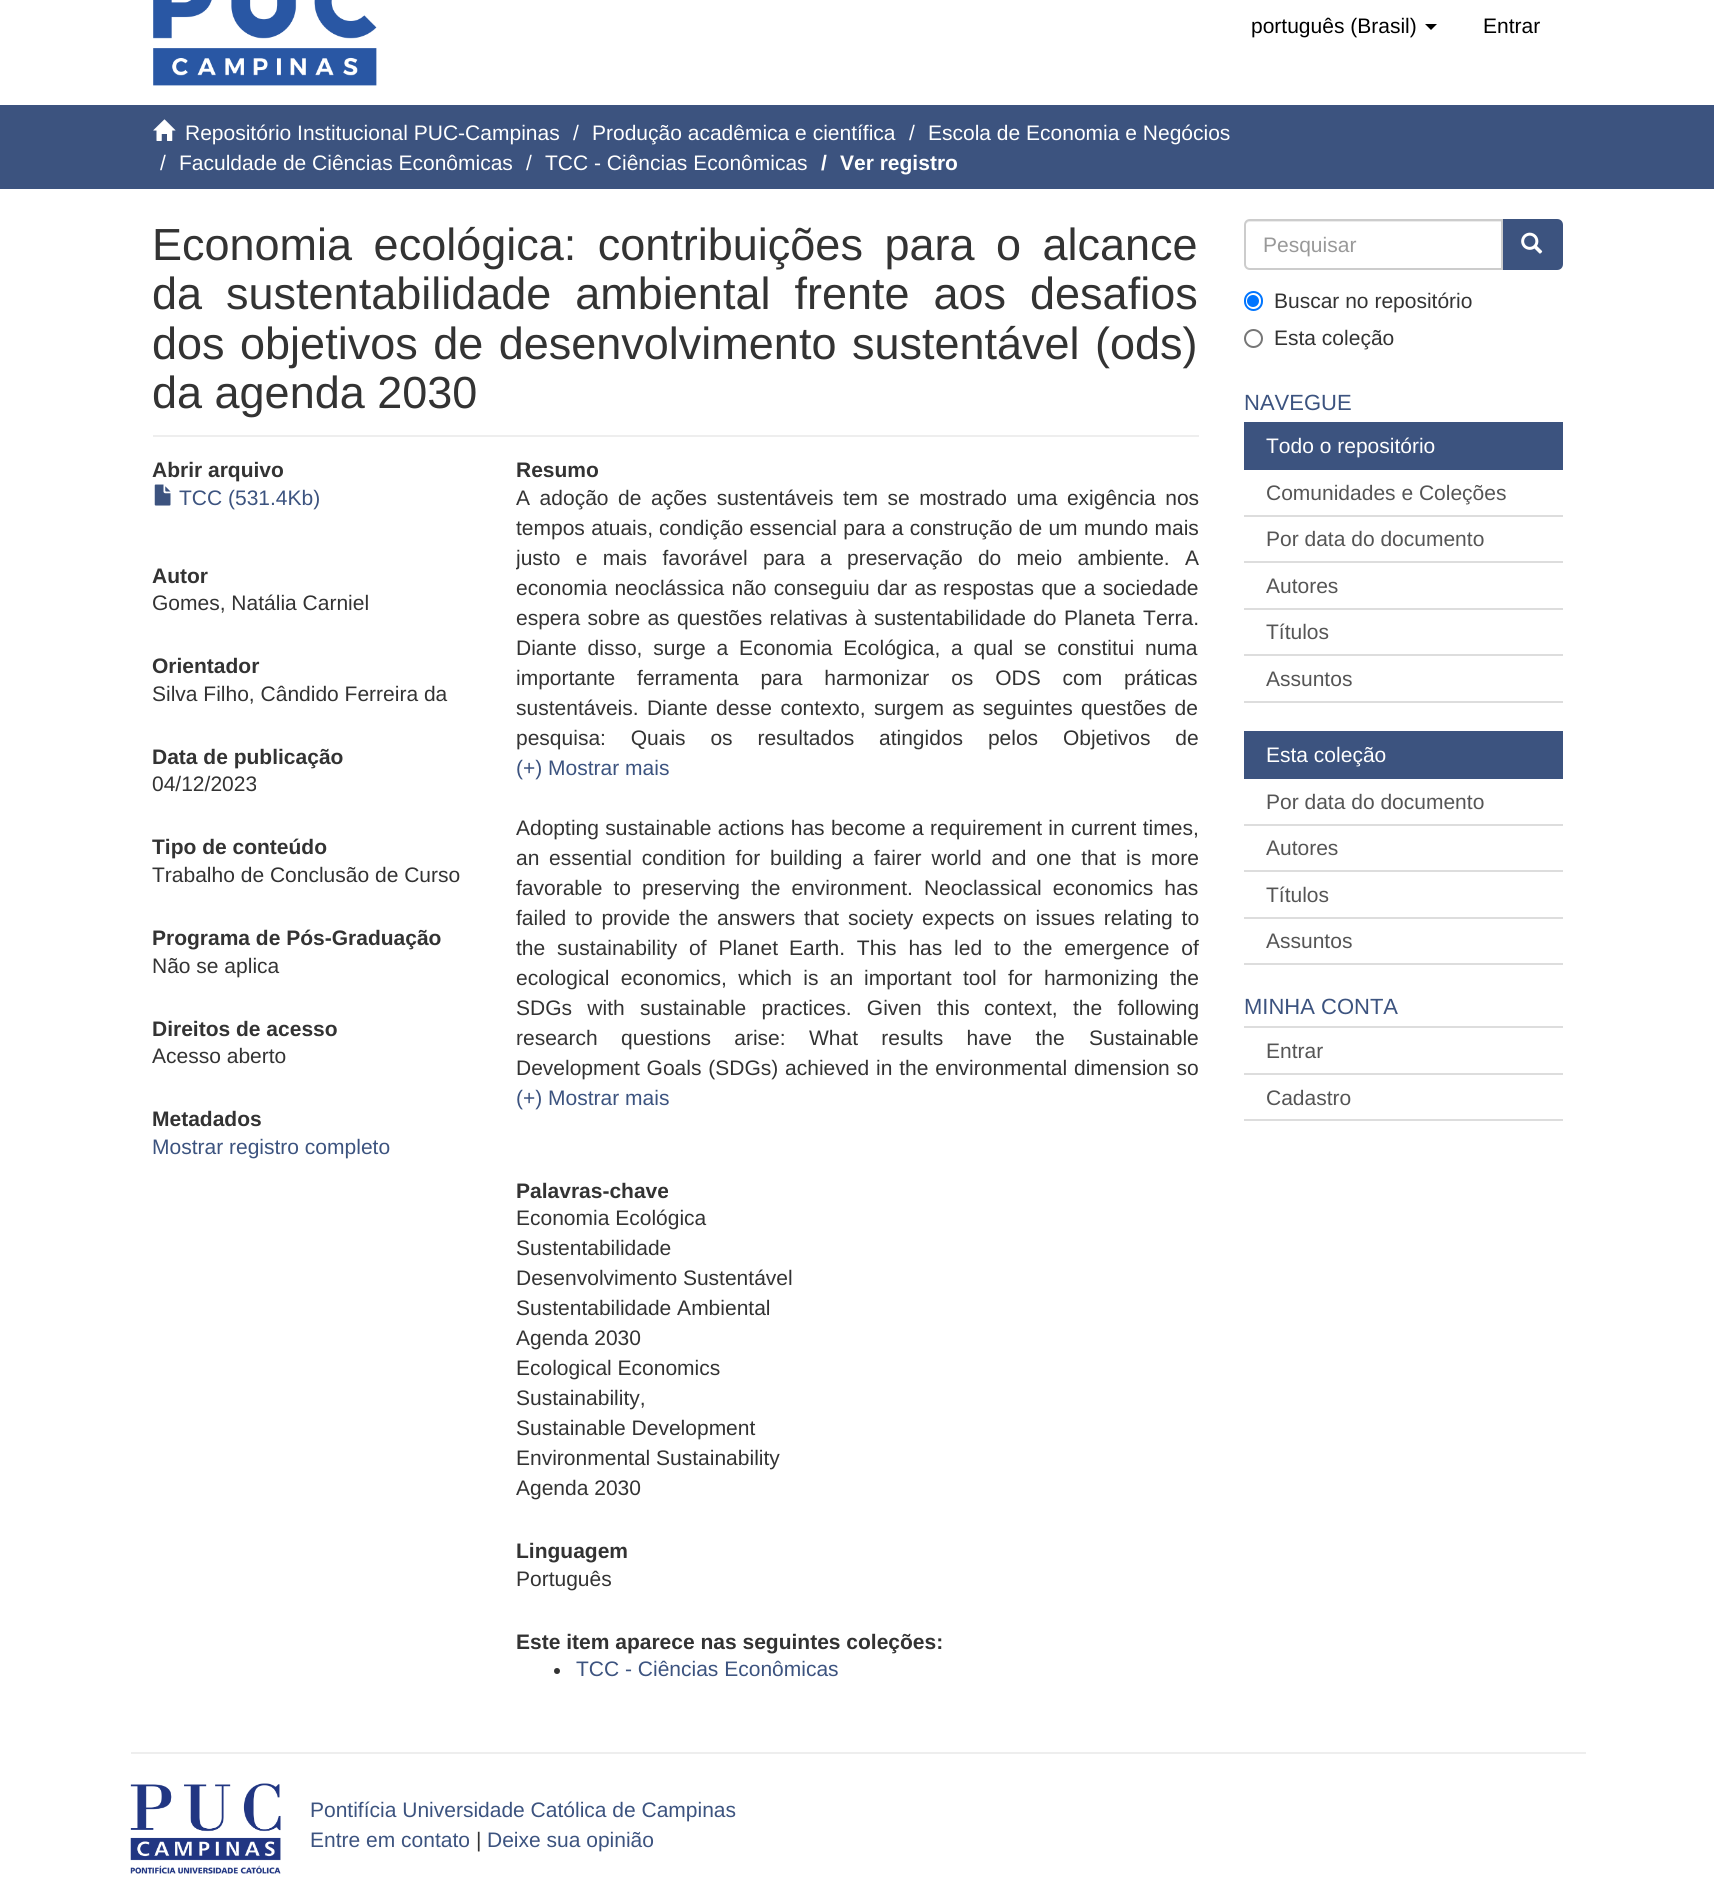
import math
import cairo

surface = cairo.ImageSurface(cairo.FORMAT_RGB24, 1714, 1901)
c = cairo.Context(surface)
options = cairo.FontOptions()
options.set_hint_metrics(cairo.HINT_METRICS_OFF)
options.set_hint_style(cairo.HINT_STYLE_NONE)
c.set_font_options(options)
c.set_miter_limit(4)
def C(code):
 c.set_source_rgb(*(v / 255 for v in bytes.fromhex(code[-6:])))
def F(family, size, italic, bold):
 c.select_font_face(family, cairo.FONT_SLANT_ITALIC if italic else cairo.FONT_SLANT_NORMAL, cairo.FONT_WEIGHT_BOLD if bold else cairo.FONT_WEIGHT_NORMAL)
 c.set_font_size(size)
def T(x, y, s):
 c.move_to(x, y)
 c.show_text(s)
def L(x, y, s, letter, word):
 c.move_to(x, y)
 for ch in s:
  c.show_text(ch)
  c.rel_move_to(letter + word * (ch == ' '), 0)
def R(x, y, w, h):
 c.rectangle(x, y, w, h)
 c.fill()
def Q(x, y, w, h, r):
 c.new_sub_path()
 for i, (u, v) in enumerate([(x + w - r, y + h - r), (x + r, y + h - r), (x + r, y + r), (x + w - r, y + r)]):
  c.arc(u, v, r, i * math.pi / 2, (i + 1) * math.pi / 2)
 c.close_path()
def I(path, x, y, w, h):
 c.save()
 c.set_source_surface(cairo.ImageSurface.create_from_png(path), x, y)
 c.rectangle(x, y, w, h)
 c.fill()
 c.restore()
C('ffffff')
c.paint()
I('1.png',153,0,224,86)
F('Liberation Sans',21,0,0)
C('000000')
T(1251,33,'português (Brasil)')
c.new_path()
c.move_to(1425,24)
c.line_to(1437,24)
c.line_to(1431,30)
c.close_path()
c.fill()
T(1483,33,'Entrar')
C('3c537f')
R(0,105,1714,84)
I('2.png',153,119,23,22)
C('ffffff')
T(185,140,'Repositório Institucional PUC-Campinas')
T(573,140,'/')
T(592,140,'Produção acadêmica e científica')
T(909,140,'/')
T(928,140,'Escola de Economia e Negócios')
T(160,170,'/')
T(179,170,'Faculdade de Ciências Econômicas')
T(526,170,'/')
T(545,170,'TCC - Ciências Econômicas')
F('Liberation Sans',21,0,1)
T(821,170,'/')
T(840,170,'Ver registro')
C('eeeeee')
R(153,435,1046,2)
F('Liberation Sans',45,0,0)
C('333333')
L(152,260,'Economia ecológica: contribuições para o alcance',0,9)
L(152,309,'da sustentabilidade ambiental frente aos desafios',0,11.5)
L(152,359,'dos objetivos de desenvolvimento sustentável (ods)',0,3)
T(152,408,'da agenda 2030')
F('Liberation Sans',21,0,1)
T(152,477,'Abrir arquivo')
I('3.png',154,484,17,22)
F('Liberation Sans',21,0,0)
C('3c537f')
T(179,505,'TCC (531.4Kb)')
F('Liberation Sans',21,0,1)
C('333333')
T(152,583,'Autor')
F('Liberation Sans',21,0,0)
T(152,610,'Gomes, Natália Carniel')
F('Liberation Sans',21,0,1)
T(152,673,'Orientador')
F('Liberation Sans',21,0,0)
T(152,701,'Silva Filho, Cândido Ferreira da')
F('Liberation Sans',21,0,1)
T(152,764,'Data de publicação')
F('Liberation Sans',21,0,0)
T(152,791,'04/12/2023')
F('Liberation Sans',21,0,1)
T(152,854,'Tipo de conteúdo')
F('Liberation Sans',21,0,0)
T(152,882,'Trabalho de Conclusão de Curso')
F('Liberation Sans',21,0,1)
T(152,945,'Programa de Pós-Graduação')
F('Liberation Sans',21,0,0)
T(152,973,'Não se aplica')
F('Liberation Sans',21,0,1)
T(152,1036,'Direitos de acesso')
F('Liberation Sans',21,0,0)
T(152,1063,'Acesso aberto')
F('Liberation Sans',21,0,1)
T(152,1126,'Metadados')
F('Liberation Sans',21,0,0)
C('3c537f')
T(152,1154,'Mostrar registro completo')
F('Liberation Sans',21,0,1)
C('333333')
T(516,477,'Resumo')
F('Liberation Sans',21,0,0)
L(516,505,'A adoção de ações sustentáveis tem se mostrado uma exigência nos',0,3.75)
L(516,535,'tempos atuais,',0,.5)
L(659,535,'condição essencial para a construção de um mundo mais',0,.5)
c.save()
c.rectangle(516,482,683,270)
c.clip()
L(516,565,'justo e mais favorável para',0,9.5)
c.restore()
L(820,565,'a preservação do meio ambiente. A',0,9.5)
L(516,595,'economia neoclássica não conseguiu dar as',0,1.5)
L(943,595,'respostas que a sociedade',0,1.5)
L(516,625,'espera sobre as questões relativas à sustentabilidade do',0,1.5)
L(1064,625,'Planeta Terra.',0,2)
L(516,655,'Diante disso, surge a Economia Ecológica, a qual se constitui numa',0,5)
L(516,685,'importante ferramenta para harmonizar os ODS com práticas',0,16)
L(516,715,'sustentáveis. Diante',0,2.5)
L(716,715,'desse contexto, surgem as seguintes questões de',0,2.5)
L(516,745,'pesquisa: Quais os resultados',0,19)
L(879,745,'atingidos pelos Objetivos de',0,19)
C('3c537f')
T(516,775,'(+) Mostrar mais')
C('333333')
L(516,835,'Adopting sustainable actions has become a requirement in current times,',0,.5)
T(516,865,'an')
L(549,865,'essential condition for building a fairer world and one that is more',0,4)
L(516,895,'favorable to',0,5.25)
L(642,895,'preserving the environment. Neoclassical economics has',0,5.25)
L(516,925,'failed to provide the',0,3)
L(717,925,'answers that society expects on issues relating to',0,3)
L(516,955,'the sustainability of Planet',0,6)
L(789,955,'Earth. This has led to the emergence of',0,6)
L(516,985,'ecological economics, which is an',0,5.5)
L(864,985,'important tool for harmonizing the',0,5.5)
L(516,1015,'SDGs with sustainable practices. Given this',0,9.5)
L(984,1015,'context, the following',0,9.5)
L(516,1045,'research questions arise: What results have the',0,17.5)
T(1089,1045,'Sustainable')
L(516,1075,'Development Goals (SDGs) achieved in the environmental',0,1)
L(1074,1075,'dimension so',0,1)
C('3c537f')
T(516,1105,'(+) Mostrar mais')
F('Liberation Sans',21,0,1)
C('333333')
T(516,1198,'Palavras-chave')
F('Liberation Sans',21,0,0)
T(516,1225,'Economia Ecológica')
T(516,1255,'Sustentabilidade')
T(516,1285,'Desenvolvimento Sustentável')
T(516,1315,'Sustentabilidade Ambiental')
T(516,1345,'Agenda 2030')
T(516,1375,'Ecological Economics')
T(516,1405,'Sustainability,')
T(516,1435,'Sustainable Development')
T(516,1465,'Environmental Sustainability')
T(516,1495,'Agenda 2030')
F('Liberation Sans',21,0,1)
T(516,1558,'Linguagem')
F('Liberation Sans',21,0,0)
T(516,1586,'Português')
F('Liberation Sans',21,0,1)
T(516,1649,'Este item aparece nas seguintes coleções:')
c.new_path()
c.arc(557,1671,3,0,2 * math.pi)
c.fill()
F('Liberation Sans',21,0,0)
C('3c537f')
T(576,1676,'TCC - Ciências Econômicas')
c.new_path()
c.move_to(1503,220)
c.line_to(1557,220)
c.curve_to(1560,220,1562,222,1562,225)
c.line_to(1562,264)
c.curve_to(1562,267,1560,269,1557,269)
c.line_to(1503,269)
c.close_path()
c.fill_preserve()
c.stroke()
C('ffffff')
c.new_path()
c.move_to(1250,219)
c.line_to(1503,219)
c.line_to(1503,270)
c.line_to(1250,270)
c.curve_to(1246.5,270,1244,267.5,1244,264)
c.line_to(1244,225)
c.curve_to(1244,221.5,1246.5,219,1250,219)
c.close_path()
c.fill()
C('ececec')
c.new_path()
c.move_to(1250,222)
c.line_to(1502,222)
c.line_to(1502,221)
c.line_to(1250,221)
c.curve_to(1247,221,1245,223,1245,226)
c.curve_to(1245,224,1247,222,1250,222)
c.close_path()
c.fill()
c.new_path()
c.move_to(1250,220)
c.line_to(1502,220)
c.line_to(1502,269)
c.line_to(1250,269)
c.curve_to(1247,269,1245,267,1245,264)
c.line_to(1245,225)
c.curve_to(1245,222,1247,220,1250,220)
c.close_path()
C('cccccc')
c.stroke()
C('999999')
T(1263,252,'Pesquisar')
I('4.png',1521,232,22,22)
Q(1245,292,17,18,8.5)
C('0075ff')
c.stroke()
c.arc(1253,301,6,0,2 * math.pi)
c.fill()
C('333333')
T(1274,308,'Buscar no repositório')
c.new_path()
c.arc(1253.5,338.5,8.5,0,2 * math.pi)
C('767676')
c.stroke()
C('333333')
T(1274,345,'Esta coleção')
F('Liberation Sans',22,0,0)
C('3c537f')
T(1244,410,'NAVEGUE')
R(1244,422,319,48)
F('Liberation Sans',21,0,0)
C('ffffff')
T(1266,453,'Todo o repositório')
C('555555')
T(1266,500,'Comunidades e Coleções')
C('dddddd')
R(1244,515,319,2)
C('555555')
T(1266,546,'Por data do documento')
C('dddddd')
R(1244,561,319,2)
C('555555')
T(1266,593,'Autores')
C('dddddd')
R(1244,608,319,2)
C('555555')
T(1266,639,'Títulos')
C('dddddd')
R(1244,654,319,2)
R(1244,701,319,2)
C('555555')
T(1266,686,'Assuntos')
C('3c537f')
R(1244,731,319,48)
C('ffffff')
T(1266,762,'Esta coleção')
C('555555')
T(1266,809,'Por data do documento')
C('dddddd')
R(1244,824,319,2)
C('555555')
T(1266,855,'Autores')
C('dddddd')
R(1244,870,319,2)
C('555555')
T(1266,902,'Títulos')
C('dddddd')
R(1244,917,319,2)
R(1244,963,319,2)
C('555555')
T(1266,948,'Assuntos')
F('Liberation Sans',22,0,0)
C('3c537f')
T(1244,1014,'MINHA CONTA')
C('dddddd')
R(1244,1026,319,2)
F('Liberation Sans',21,0,0)
C('555555')
T(1266,1058,'Entrar')
C('dddddd')
R(1244,1073,319,2)
R(1244,1119,319,2)
C('555555')
T(1266,1105,'Cadastro')
C('eeeeee')
R(131,1752,1455,2)
I('5.png',130,1783,151,91)
C('3c537f')
T(310,1817,'Pontifícia Universidade Católica de Campinas')
T(310,1847,'Entre em contato')
C('333333')
T(476,1847,'|')
C('3c537f')
T(487,1847,'Deixe sua opinião')
surface.write_to_png('o.png')
